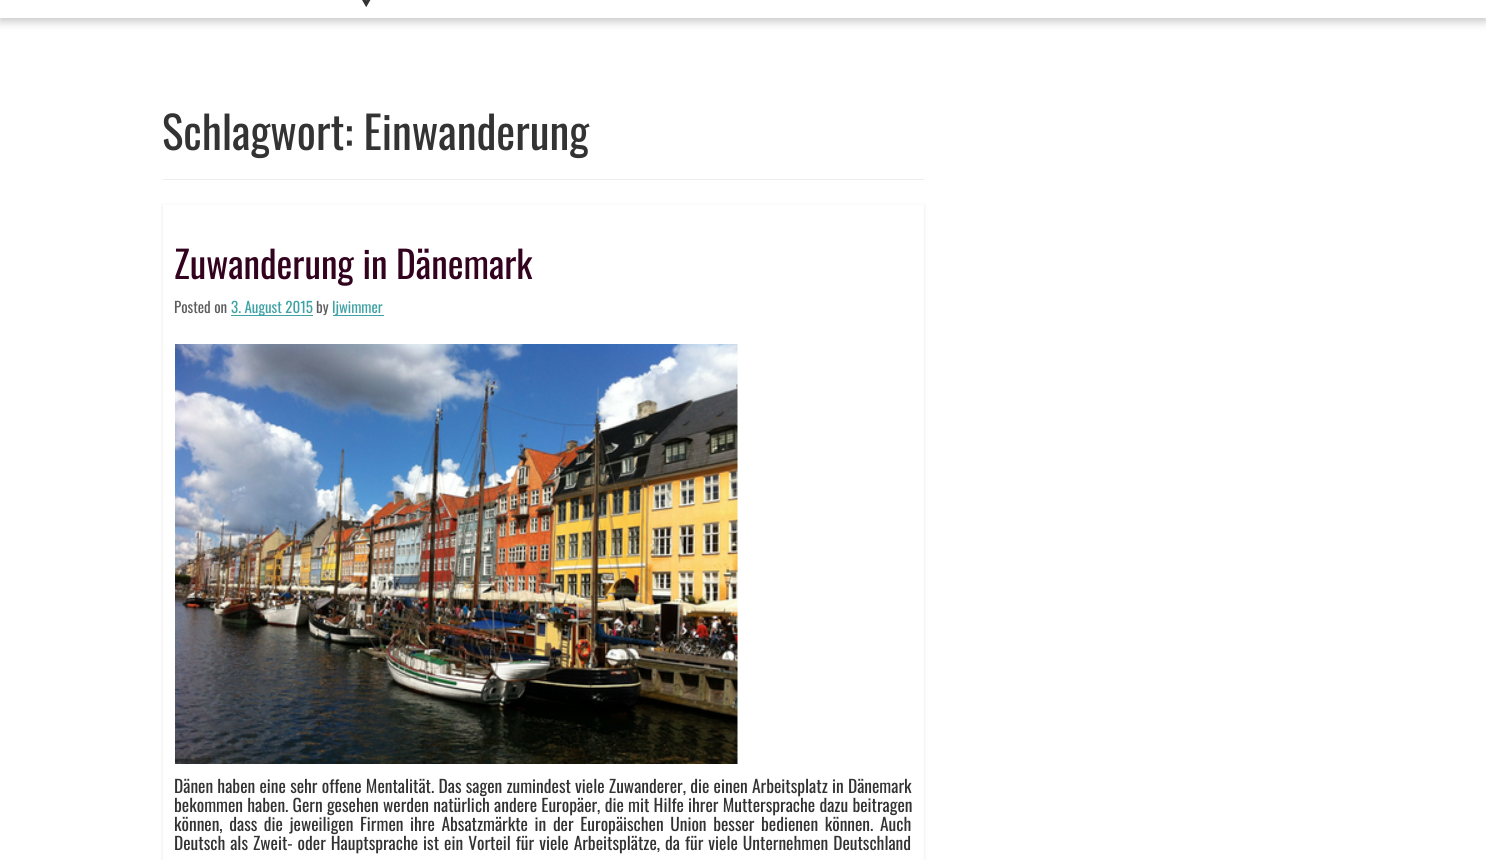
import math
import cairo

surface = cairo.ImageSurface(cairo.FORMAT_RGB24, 1486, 860)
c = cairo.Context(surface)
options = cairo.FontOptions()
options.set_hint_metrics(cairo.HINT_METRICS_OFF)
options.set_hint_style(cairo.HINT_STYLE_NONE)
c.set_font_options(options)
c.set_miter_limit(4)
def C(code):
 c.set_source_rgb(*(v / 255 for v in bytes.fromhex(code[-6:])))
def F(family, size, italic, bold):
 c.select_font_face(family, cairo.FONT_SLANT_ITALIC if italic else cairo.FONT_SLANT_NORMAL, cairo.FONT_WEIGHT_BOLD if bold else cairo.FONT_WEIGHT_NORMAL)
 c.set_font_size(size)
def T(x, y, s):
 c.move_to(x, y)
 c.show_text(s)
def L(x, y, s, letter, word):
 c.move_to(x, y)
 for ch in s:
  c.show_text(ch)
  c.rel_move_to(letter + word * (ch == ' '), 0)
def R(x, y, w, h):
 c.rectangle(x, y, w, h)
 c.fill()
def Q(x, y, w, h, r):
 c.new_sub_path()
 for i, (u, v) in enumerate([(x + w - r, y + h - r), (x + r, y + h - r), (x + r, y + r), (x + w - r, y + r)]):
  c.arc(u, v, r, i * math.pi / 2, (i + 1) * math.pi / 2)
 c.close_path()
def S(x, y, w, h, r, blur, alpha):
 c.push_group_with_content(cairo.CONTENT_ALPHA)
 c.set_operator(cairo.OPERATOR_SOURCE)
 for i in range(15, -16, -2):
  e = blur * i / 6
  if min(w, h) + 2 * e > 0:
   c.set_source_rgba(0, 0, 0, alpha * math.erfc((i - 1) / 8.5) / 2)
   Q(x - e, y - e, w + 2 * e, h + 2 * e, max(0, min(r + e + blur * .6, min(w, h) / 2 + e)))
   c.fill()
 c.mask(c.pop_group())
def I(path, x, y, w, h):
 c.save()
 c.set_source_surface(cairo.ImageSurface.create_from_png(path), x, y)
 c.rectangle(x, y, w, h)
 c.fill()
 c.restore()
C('ffffff')
c.paint()
C('000000')
S(0,-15,1486,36,0,5,.24)
C('ffffff')
R(0,0,1486,18)
F('FreeSans',15,0,0)
C('333333')
T(360,7,'⮟')
C('eeeeee')
R(163,179,761,1)
F('Oswald',45,0,0)
C('333333')
T(162,150,'Schlagwort: Einwanderung')
C('000000')
S(163,206,761,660,0,2,.1)
C('ffffff')
R(163,205,761,655)
F('Oswald',37.5,0,0)
C('32021f')
T(174,279,'Zuwanderung in Dänemark')
F('Oswald',15,0,0)
C('5c5c5c')
T(174,313,'Posted on')
C('3fa2a4')
R(231,315,82,1)
T(231,313,'3. August 2015')
C('5c5c5c')
T(316,313,'by')
C('3fa2a4')
R(333,315,51,1)
T(332,313,'ljwimmer')
I('1.png',175,344,563,420)
F('Oswald',17.5,0,0)
C('333333')
L(174,793,'Dänen haben eine sehr offene Mentalität. Das sagen zumindest viele Zuwanderer, die einen Arbeitsplatz in Dänemark',0,.25)
L(174,812,'bekommen haben. Gern gesehen werden natürlich andere Europäer, die mit Hilfe ihrer Muttersprache dazu beitragen',0,.25)
L(174,831,'können, dass die jeweiligen Firmen ihre Absatzmärkte in der Europäischen Union besser bedienen können. Auch',0,2.6)
L(174,850,'Deutsch als Zweit- oder Hauptsprache ist ein Vorteil für viele Arbeitsplätze, da für viele Unternehmen Deutschland',0,1)
surface.write_to_png('o.png')
